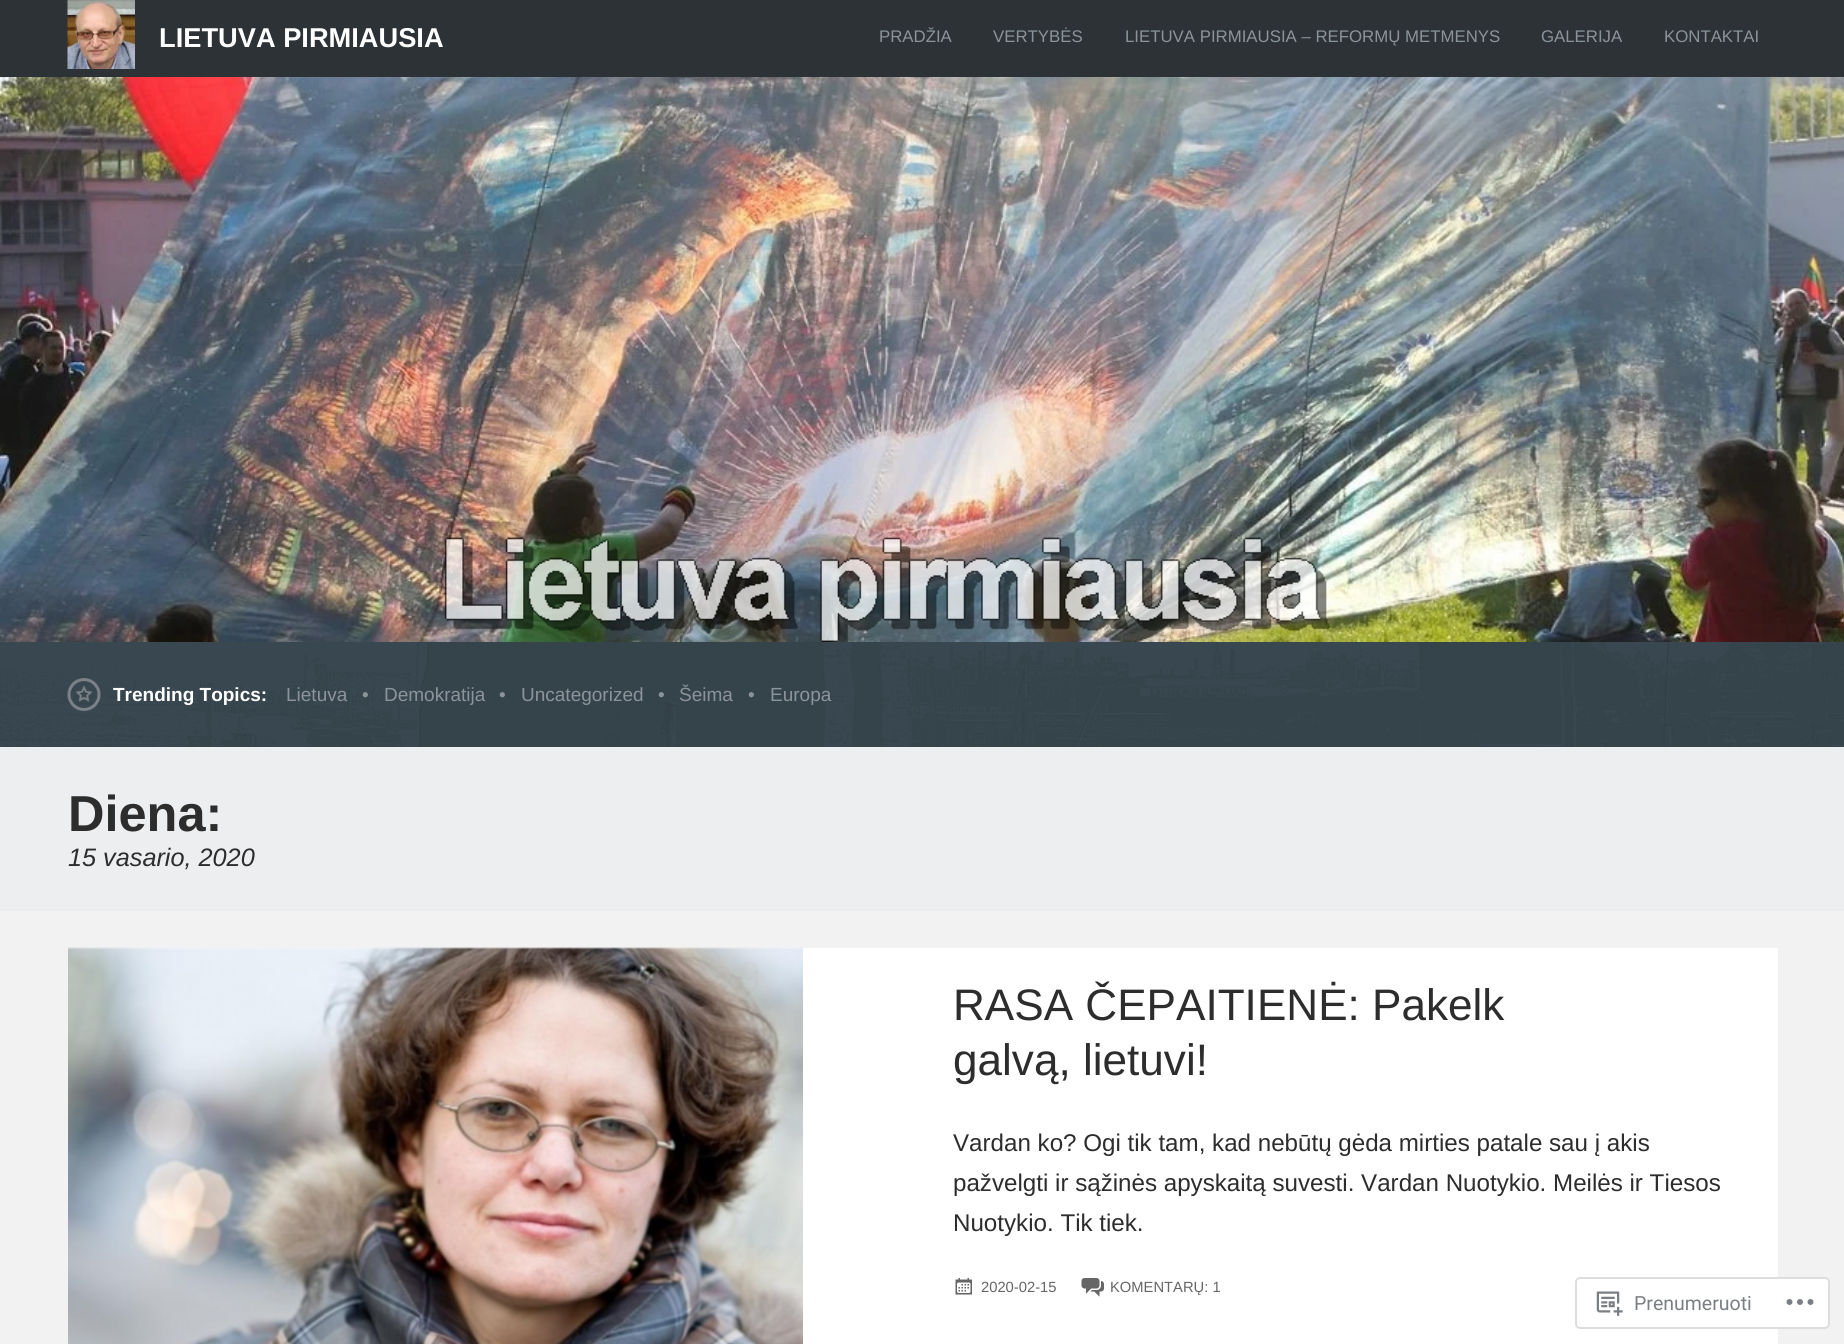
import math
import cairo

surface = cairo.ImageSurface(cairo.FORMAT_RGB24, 1844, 1344)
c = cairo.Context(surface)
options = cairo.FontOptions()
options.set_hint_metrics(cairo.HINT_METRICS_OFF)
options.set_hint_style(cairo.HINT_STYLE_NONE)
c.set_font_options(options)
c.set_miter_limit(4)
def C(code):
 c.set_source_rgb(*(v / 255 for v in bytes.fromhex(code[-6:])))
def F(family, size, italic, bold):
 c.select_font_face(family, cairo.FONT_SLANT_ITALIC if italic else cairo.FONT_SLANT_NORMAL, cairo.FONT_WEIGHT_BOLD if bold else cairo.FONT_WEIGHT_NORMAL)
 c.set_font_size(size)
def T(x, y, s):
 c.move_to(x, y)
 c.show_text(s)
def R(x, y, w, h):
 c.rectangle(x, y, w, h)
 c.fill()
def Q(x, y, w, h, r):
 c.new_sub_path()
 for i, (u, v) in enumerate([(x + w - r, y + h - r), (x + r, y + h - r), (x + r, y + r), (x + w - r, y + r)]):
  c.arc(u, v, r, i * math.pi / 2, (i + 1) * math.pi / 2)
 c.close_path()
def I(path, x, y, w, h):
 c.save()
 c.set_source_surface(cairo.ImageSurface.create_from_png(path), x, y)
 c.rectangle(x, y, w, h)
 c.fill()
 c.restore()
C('f2f2f2')
c.paint()
C('2c3236')
R(0,0,1844,77)
I('1.png',67,0,68,69)
F('Arimo',27.25,0,1)
C('ffffff')
T(159,47,'LIETUVA PIRMIAUSIA')
F('Arimo',16.8,0,0)
C('8b949a')
T(879,42,'PRADŽIA')
T(993,42,'VERTYBĖS')
T(1125,42,'LIETUVA PIRMIAUSIA – REFORMŲ METMENYS')
T(1541,42,'GALERIJA')
T(1664,42,'KONTAKTAI')
I('2.png',0,77,1844,565)
I('3.png',0,642,1844,105)
I('4.png',67,678,34,33)
F('Arimo',19,0,1)
C('ffffff')
T(113,701,'Trending Topics:')
F('Arimo',19,0,0)
C('8b949a')
T(286,701,'Lietuva')
T(362,701,'•')
T(384,701,'Demokratija')
T(499,701,'•')
T(521,701,'Uncategorized')
T(658,701,'•')
T(679,701,'Šeima')
T(748,701,'•')
T(770,701,'Europa')
C('eceeef')
R(0,747,1844,164)
F('Arimo',50.5,0,1)
C('2d2d2d')
T(68,831,'Diena:')
F('Arimo',25.25,1,0)
T(68,866,'15 vasario, 2020')
C('ffffff')
R(68,948,1710,396)
I('5.png',68,947,735,397)
F('Arimo',44.1,0,0)
C('2d2d2d')
T(953,1020,'RASA ČEPAITIENĖ: Pakelk')
T(953,1075,'galvą, lietuvi!')
F('Arimo',24.15,0,0)
T(953,1151,'Vardan ko? Ogi tik tam, kad nebūtų gėda mirties patale sau į akis')
T(953,1191,'pažvelgti ir sąžinės apyskaitą suvesti. Vardan Nuotykio. Meilės ir Tiesos')
T(953,1231,'Nuotykio. Tik tiek.')
I('6.png',955,1278,17,17)
F('Arimo',14.75,0,0)
C('666666')
T(981,1292,'2020-02-15')
I('7.png',1081,1278,23,19)
T(1110,1292,'KOMENTARŲ: 1')
c.set_source_rgba(1,1,1,0.98)
Q(1575,1277,255,52,5)
c.fill()
Q(1576,1278,253,50,4)
c.set_source_rgba(0.863,0.863,0.871,0.98)
c.stroke()
I('8.png',1596,1291,27,25)
F('Roboto',19.5,0,0)
C('7b7f85')
T(1634,1310,'Prenumeruoti')
I('9.png',1786,1299,28,6)
surface.write_to_png('o.png')
